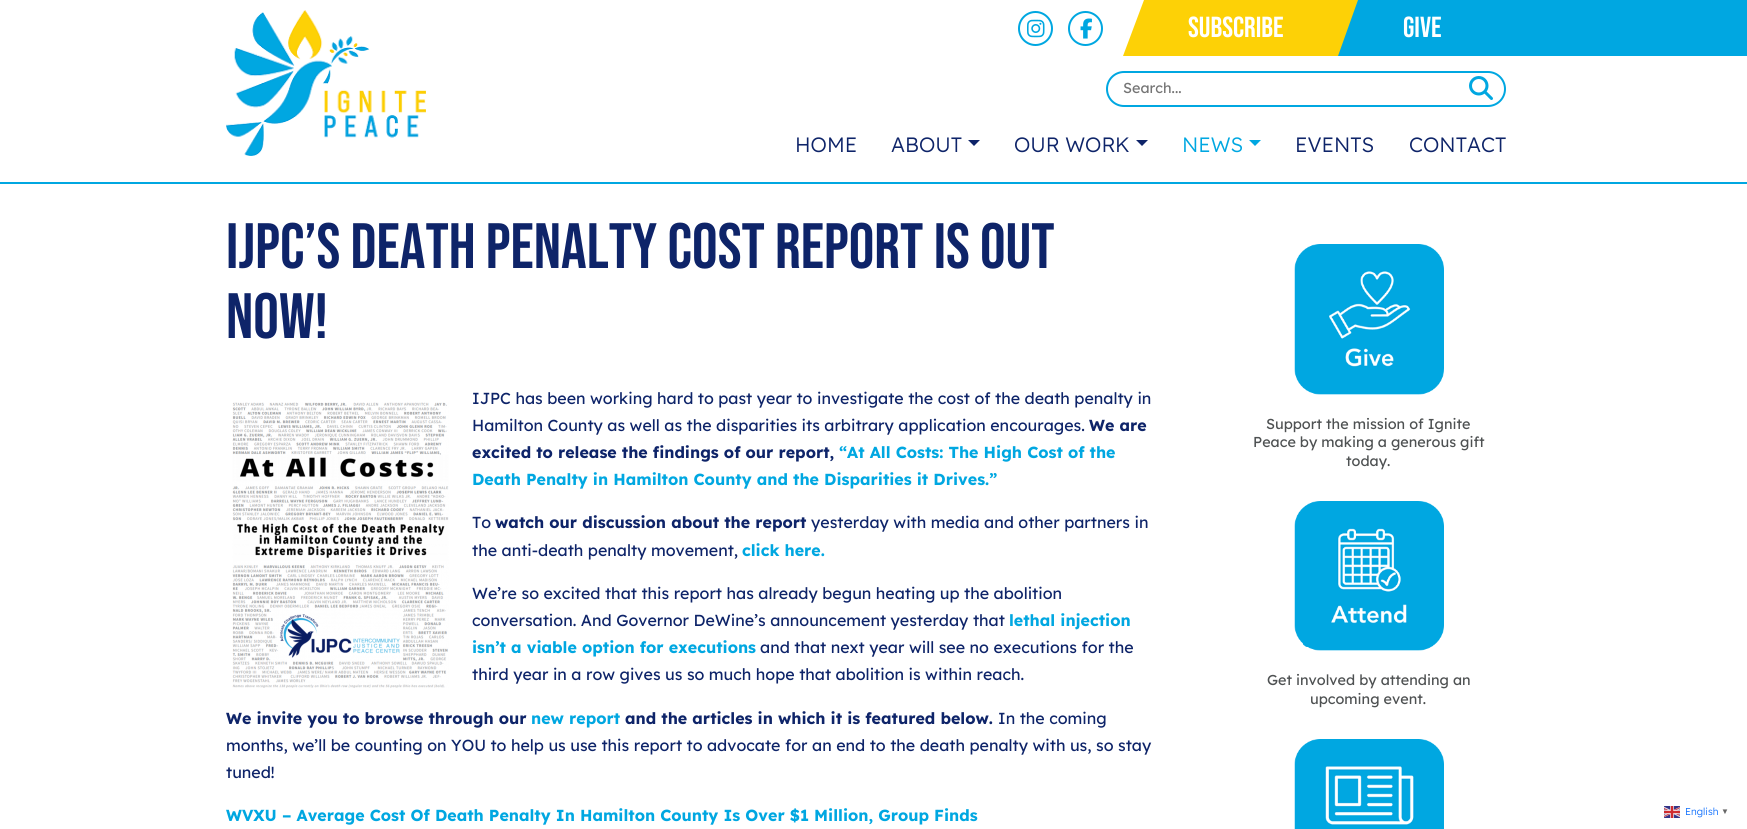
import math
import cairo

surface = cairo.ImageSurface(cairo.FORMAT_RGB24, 1747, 829)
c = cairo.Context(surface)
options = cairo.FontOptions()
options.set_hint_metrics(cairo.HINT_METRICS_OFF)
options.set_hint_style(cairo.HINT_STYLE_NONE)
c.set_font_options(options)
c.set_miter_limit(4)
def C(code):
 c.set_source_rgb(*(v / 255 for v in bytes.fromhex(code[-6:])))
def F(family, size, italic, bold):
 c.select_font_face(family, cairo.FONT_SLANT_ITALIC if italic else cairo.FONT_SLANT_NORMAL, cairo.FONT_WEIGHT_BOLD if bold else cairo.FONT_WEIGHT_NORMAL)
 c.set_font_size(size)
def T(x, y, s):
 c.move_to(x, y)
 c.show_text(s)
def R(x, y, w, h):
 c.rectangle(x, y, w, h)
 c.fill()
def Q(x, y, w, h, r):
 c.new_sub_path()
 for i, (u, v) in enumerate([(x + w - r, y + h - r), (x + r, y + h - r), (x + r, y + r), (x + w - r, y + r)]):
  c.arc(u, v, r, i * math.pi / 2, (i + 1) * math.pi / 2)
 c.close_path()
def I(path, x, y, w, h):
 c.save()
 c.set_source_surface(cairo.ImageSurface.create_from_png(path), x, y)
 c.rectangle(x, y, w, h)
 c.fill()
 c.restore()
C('ffffff')
c.paint()
I('1.png',226,10,200,146)
c.arc(1035.5,28.5,16.5,0,2 * math.pi)
C('00a7e1')
c.stroke()
I('2.png',1027,19,18,19)
c.arc(1085.5,28.5,16.5,0,2 * math.pi)
c.stroke()
I('3.png',1080,18,12,21)
C('fdd106')
R(1153,0,205,56)
c.new_path()
c.move_to(1144,0)
c.line_to(1174,0)
c.line_to(1153,56)
c.line_to(1123,56)
c.close_path()
c.fill()
F('Bebas Neue',29,0,0)
C('ffffff')
T(1188,37,'SUBSCRIBE')
C('00a7e1')
R(1368,0,379,56)
c.new_path()
c.move_to(1358,0)
c.line_to(1388,0)
c.line_to(1368,56)
c.line_to(1338,56)
c.close_path()
c.fill()
C('ffffff')
T(1403,37,'GIVE')
Q(1107,72,398,34,17)
C('00a7e1')
c.stroke()
F('Lexend',14.4,0,0)
C('757575')
T(1123,93,'Search...')
I('4.png',1469,76,24,24)
F('Lexend Light',20.75,0,0)
C('0e2469')
T(795,152,'HOME')
T(891,152,'ABOUT')
c.new_path()
c.move_to(968,140)
c.line_to(980,140)
c.line_to(974,146)
c.close_path()
c.fill()
T(1014,152,'OUR WORK')
c.new_path()
c.move_to(1136,140)
c.line_to(1148,140)
c.line_to(1142,146)
c.close_path()
c.fill()
C('00a7e1')
T(1182,152,'NEWS')
c.new_path()
c.move_to(1249,140)
c.line_to(1261,140)
c.line_to(1255,146)
c.close_path()
c.fill()
C('0e2469')
T(1295,152,'EVENTS')
T(1409,152,'CONTACT')
C('00a7e1')
R(0,182,1747,2)
F('Bebas Neue',64,0,0)
C('0e2469')
T(226,268,'IJPC’s Death Penalty Cost Report is Out')
T(226,338,'Now!')
I('5.png',232,402,217,286)
F('Lexend',16,0,0)
T(472,404,'IJPC has been working hard to past year to investigate the cost of the death penalty in')
T(472,431,'Hamilton County as well as the disparities its arbitrary application encourages.')
F('Lexend',16,0,1)
T(1089,431,'We are')
T(472,458,'excited to release the findings of our report,')
C('00a7e1')
T(839,458,'“At All Costs: The High Cost of the')
T(472,485,'Death Penalty in Hamilton County and the Disparities it Drives.”')
F('Lexend',16,0,0)
C('0e2469')
T(472,528,'To')
F('Lexend',16,0,1)
T(495,528,'watch our discussion about the report')
F('Lexend',16,0,0)
T(811,528,'yesterday with media and other partners in')
T(472,556,'the anti-death penalty movement,')
F('Lexend',16,0,1)
C('00a7e1')
T(742,556,'click here.')
F('Lexend',16,0,0)
C('0e2469')
T(472,599,'We’re so excited that this report has already begun heating up the abolition')
T(472,626,'conversation. And Governor DeWine’s announcement yesterday that')
F('Lexend',16,0,1)
C('00a7e1')
T(1009,626,'lethal injection')
T(472,653,'isn’t a viable option for executions')
F('Lexend',16,0,0)
C('0e2469')
T(760,653,'and that next year will see no executions for the')
T(472,680,'third year in a row gives us so much hope that abolition is within reach.')
F('Lexend',16,0,1)
T(226,724,'We invite you to browse through our')
C('00a7e1')
T(531,724,'new report')
C('0e2469')
T(625,724,'and the articles in which it is featured below.')
F('Lexend',16,0,0)
T(998,724,'In the coming')
T(226,751,'months, we’ll be counting on YOU to help us use this report to advocate for an end to the death penalty with us, so stay')
T(226,778,'tuned!')
F('Lexend',16,0,1)
C('00a7e1')
T(226,821,'WVXU – Average Cost Of Death Penalty In Hamilton County Is Over $1 Million, Group Finds')
I('6.png',1294,244,150,151)
F('Lexend',14.4,0,0)
C('4e5152')
T(1266,429,'Support the mission of Ignite')
T(1253,447,'Peace by making a generous gift')
T(1346,466,'today.')
I('7.png',1294,501,150,150)
T(1267,685,'Get involved by attending an')
T(1310,704,'upcoming event.')
I('8.png',1294,739,150,90)
I('9.png',1664,806,16,12)
F('Lexend Light',10,0,0)
C('0d6efd')
T(1685,815,'English')
F('Liberation Sans',8,0,1)
C('666666')
T(1721,814,'▼')
surface.write_to_png('o.png')
